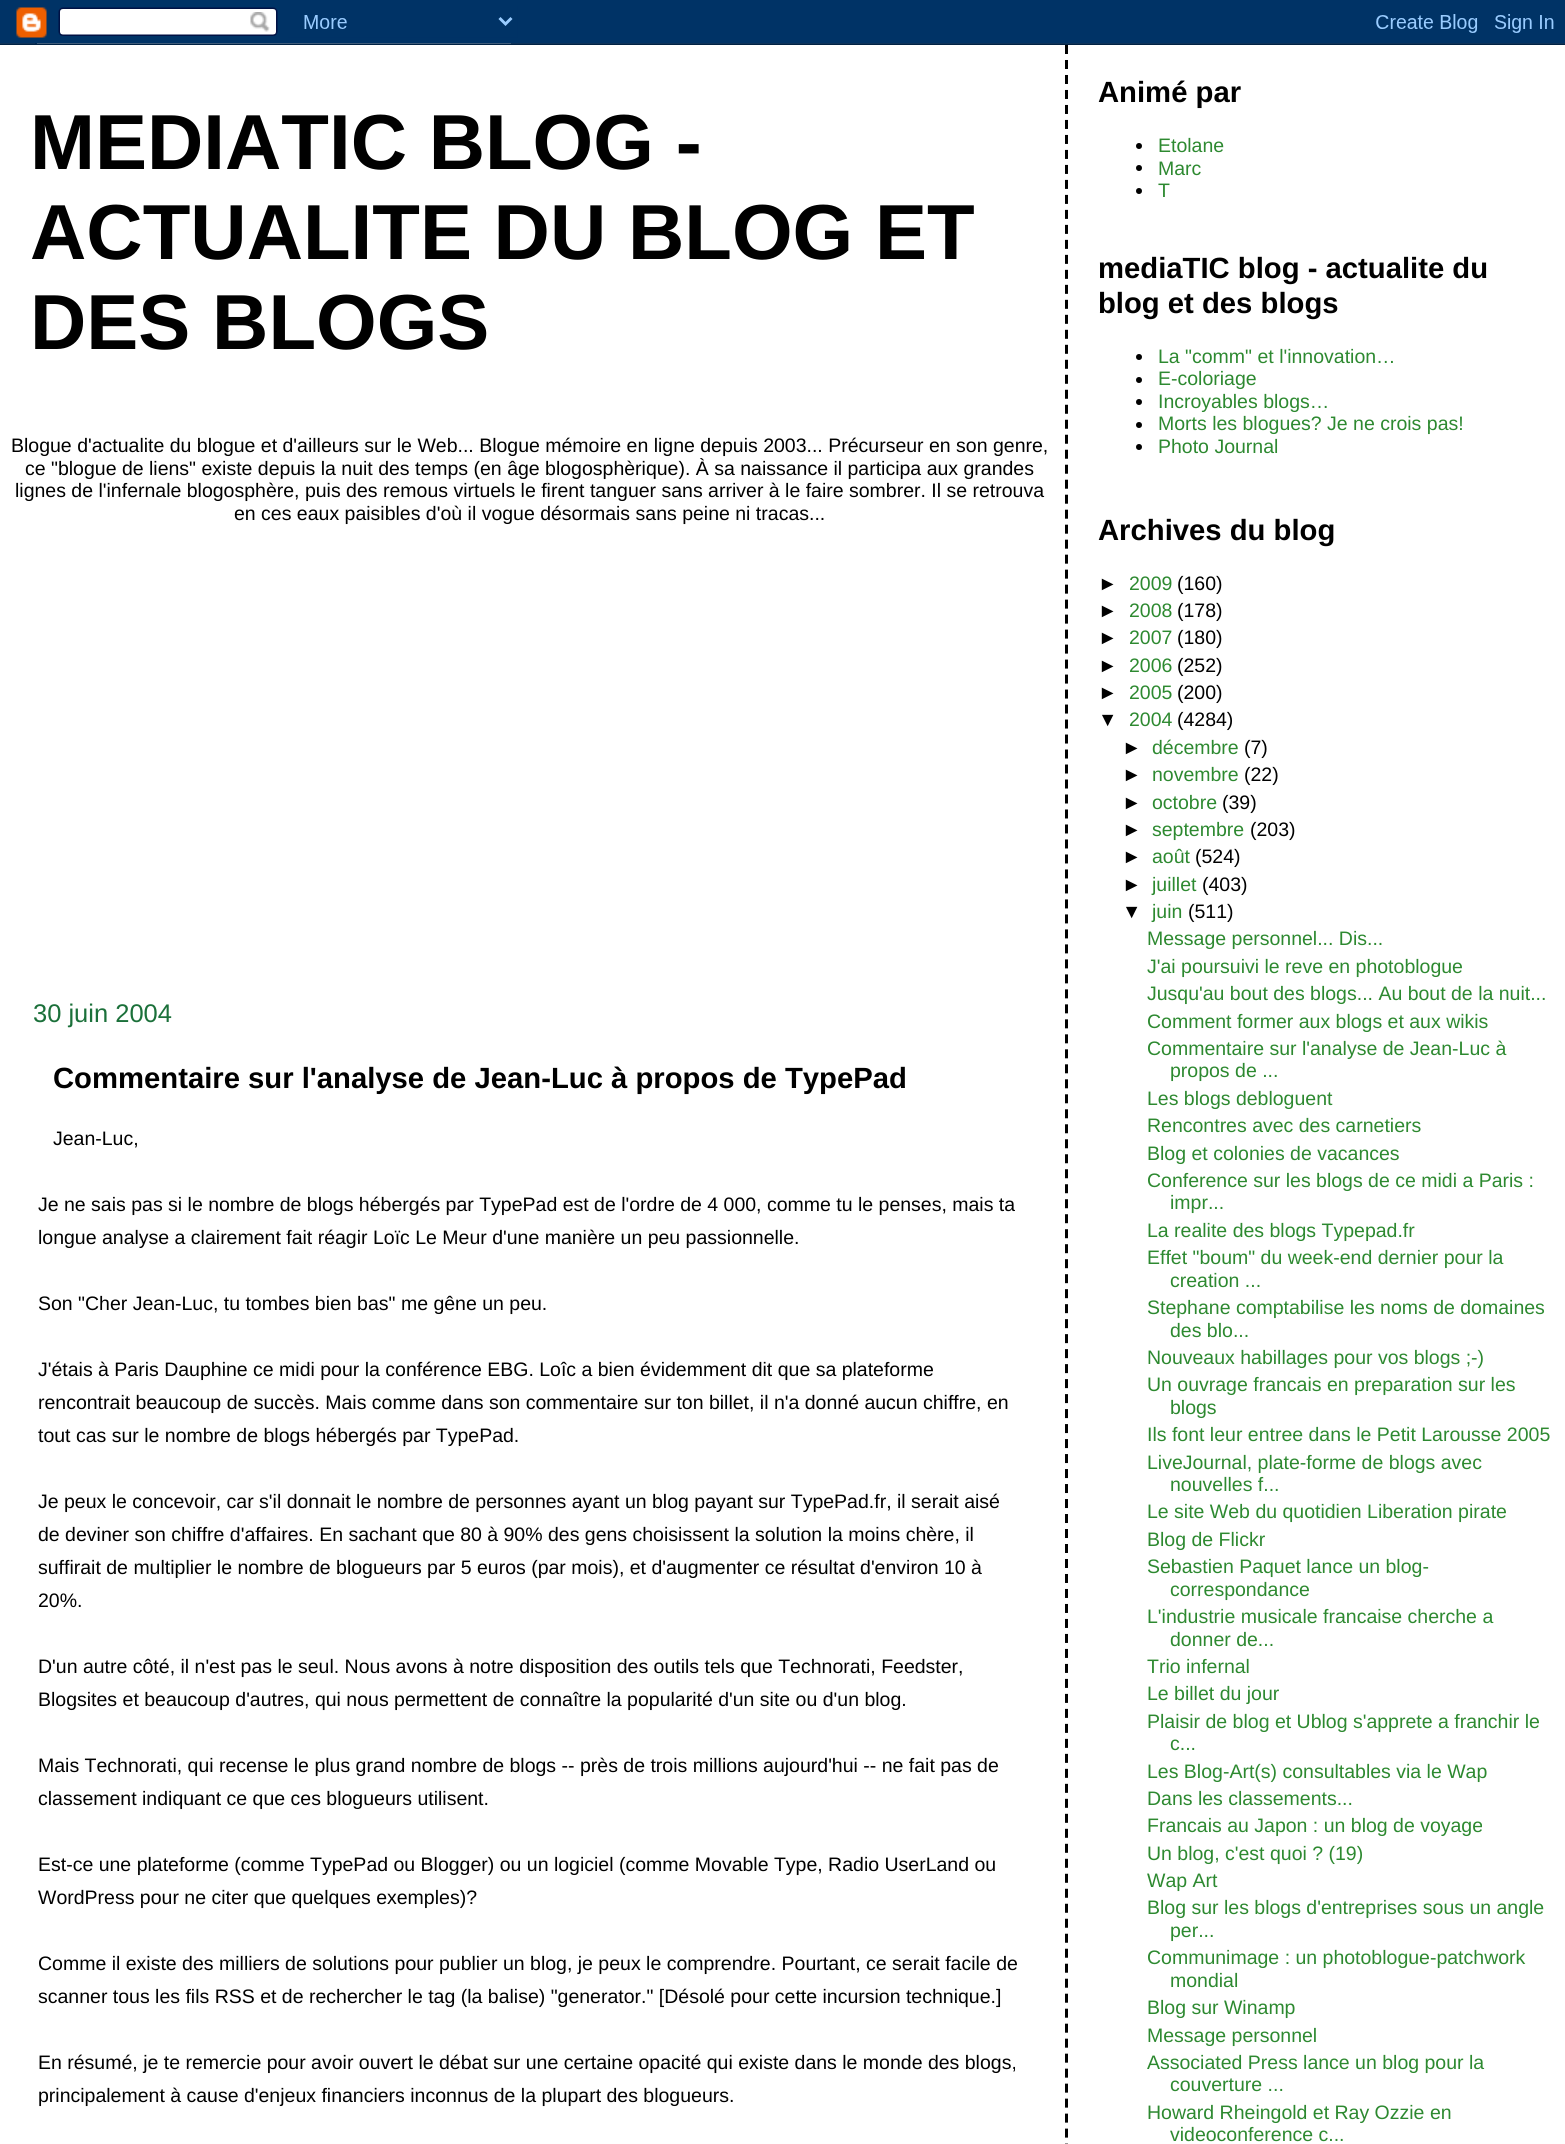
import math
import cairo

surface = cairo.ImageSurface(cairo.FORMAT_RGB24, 1565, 2144)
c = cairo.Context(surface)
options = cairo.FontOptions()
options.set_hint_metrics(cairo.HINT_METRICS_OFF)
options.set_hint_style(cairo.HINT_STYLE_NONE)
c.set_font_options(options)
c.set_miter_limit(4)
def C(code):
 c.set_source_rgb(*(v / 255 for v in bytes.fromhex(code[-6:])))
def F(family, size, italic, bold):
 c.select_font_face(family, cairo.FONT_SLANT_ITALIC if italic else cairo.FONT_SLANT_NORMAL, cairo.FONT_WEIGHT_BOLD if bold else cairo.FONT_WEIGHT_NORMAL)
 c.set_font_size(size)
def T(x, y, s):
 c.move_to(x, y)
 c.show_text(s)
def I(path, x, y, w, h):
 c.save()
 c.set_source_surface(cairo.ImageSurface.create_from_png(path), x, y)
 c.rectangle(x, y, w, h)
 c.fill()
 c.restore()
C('ffffff')
c.paint()
I('1.png',0,0,1565,45)
F('Liberation Sans',78,0,1)
C('000000')
T(30,169,'MEDIATIC BLOG -')
T(30,259,'ACTUALITE DU BLOG ET')
T(30,349,'DES BLOGS')
F('Liberation Sans',19.5,0,0)
T(11,452,'Blogue d\'actualite du blogue et d\'ailleurs sur le Web... Blogue mémoire en ligne depuis 2003... Précurseur en son genre,')
T(25,475,'ce "blogue de liens" existe depuis la nuit des temps (en âge blogosphèrique). À sa naissance il participa aux grandes')
T(15,497,'lignes de l\'infernale blogosphère, puis des remous virtuels le firent tanguer sans arriver à le faire sombrer. Il se retrouva')
T(234,520,'en ces eaux paisibles d\'où il vogue désormais sans peine ni tracas...')
F('Liberation Sans',25.5,0,0)
C('1b703a')
T(33,1022,'30 juin 2004')
F('Liberation Sans',29.25,0,1)
C('000000')
T(53,1088,'Commentaire sur l\'analyse de Jean-Luc à propos de TypePad')
F('Liberation Sans',19.5,0,0)
T(53,1145,'Jean-Luc,')
T(38,1211,'Je ne sais pas si le nombre de blogs hébergés par TypePad est de l\'ordre de 4 000, comme tu le penses, mais ta')
T(38,1244,'longue analyse a clairement fait réagir Loïc Le Meur d\'une manière un peu passionnelle.')
T(38,1310,'Son "Cher Jean-Luc, tu tombes bien bas" me gêne un peu.')
T(38,1376,'J\'étais à Paris Dauphine ce midi pour la conférence EBG. Loîc a bien évidemment dit que sa plateforme')
T(38,1409,'rencontrait beaucoup de succès. Mais comme dans son commentaire sur ton billet, il n\'a donné aucun chiffre, en')
T(38,1442,'tout cas sur le nombre de blogs hébergés par TypePad.')
T(38,1508,'Je peux le concevoir, car s\'il donnait le nombre de personnes ayant un blog payant sur TypePad.fr, il serait aisé')
T(38,1541,'de deviner son chiffre d\'affaires. En sachant que 80 à 90% des gens choisissent la solution la moins chère, il')
T(38,1574,'suffirait de multiplier le nombre de blogueurs par 5 euros (par mois), et d\'augmenter ce résultat d\'environ 10 à')
T(38,1607,'20%.')
T(38,1673,'D\'un autre côté, il n\'est pas le seul. Nous avons à notre disposition des outils tels que Technorati, Feedster,')
T(38,1706,'Blogsites et beaucoup d\'autres, qui nous permettent de connaître la popularité d\'un site ou d\'un blog.')
T(38,1772,'Mais Technorati, qui recense le plus grand nombre de blogs -- près de trois millions aujourd\'hui -- ne fait pas de')
T(38,1805,'classement indiquant ce que ces blogueurs utilisent.')
T(38,1871,'Est-ce une plateforme (comme TypePad ou Blogger) ou un logiciel (comme Movable Type, Radio UserLand ou')
T(38,1904,'WordPress pour ne citer que quelques exemples)?')
T(38,1970,'Comme il existe des milliers de solutions pour publier un blog, je peux le comprendre. Pourtant, ce serait facile de')
T(38,2003,'scanner tous les fils RSS et de rechercher le tag (la balise) "generator." [Désolé pour cette incursion technique.]')
T(38,2069,'En résumé, je te remercie pour avoir ouvert le débat sur une certaine opacité qui existe dans le monde des blogs,')
T(38,2102,'principalement à cause d\'enjeux financiers inconnus de la plupart des blogueurs.')
c.new_path()
c.move_to(1066.5,45)
c.line_to(1066.5,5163)
c.set_line_width(3)
c.set_dash([9,5.99])
c.stroke()
F('Liberation Sans',29.25,0,1)
T(1098,102,'Animé par')
c.new_path()
c.arc(1139,146,3,0,2 * math.pi)
c.fill()
F('Liberation Sans',19.5,0,0)
C('2d8930')
T(1158,152,'Etolane')
C('000000')
c.new_path()
c.arc(1139,168,3,0,2 * math.pi)
c.fill()
C('2d8930')
T(1158,175,'Marc')
C('000000')
c.new_path()
c.arc(1139,191,3,0,2 * math.pi)
c.fill()
C('2d8930')
T(1158,197,'T')
F('Liberation Sans',29.25,0,1)
C('000000')
T(1098,278,'mediaTIC blog - actualite du')
T(1098,313,'blog et des blogs')
c.new_path()
c.arc(1139,357,3,0,2 * math.pi)
c.fill()
F('Liberation Sans',19.5,0,0)
C('2d8930')
T(1158,363,'La "comm" et l\'innovation…')
C('000000')
c.new_path()
c.arc(1139,380,3,0,2 * math.pi)
c.fill()
C('2d8930')
T(1158,385,'E-coloriage')
C('000000')
c.new_path()
c.arc(1139,402,3,0,2 * math.pi)
c.fill()
C('2d8930')
T(1158,408,'Incroyables blogs…')
C('000000')
c.new_path()
c.arc(1139,425,3,0,2 * math.pi)
c.fill()
C('2d8930')
T(1158,430,'Morts les blogues? Je ne crois pas!')
C('000000')
c.new_path()
c.arc(1139,447,3,0,2 * math.pi)
c.fill()
C('2d8930')
T(1158,453,'Photo Journal')
F('Liberation Sans',29.25,0,1)
C('000000')
T(1098,540,'Archives du blog')
F('Liberation Sans',19.5,0,0)
T(1098,590,'►')
C('2d8930')
T(1129,590,'2009')
C('000000')
T(1177,590,'(160)')
T(1098,617,'►')
C('2d8930')
T(1129,617,'2008')
C('000000')
T(1177,617,'(178)')
T(1098,644,'►')
C('2d8930')
T(1129,644,'2007')
C('000000')
T(1177,644,'(180)')
T(1098,672,'►')
C('2d8930')
T(1129,672,'2006')
C('000000')
T(1177,672,'(252)')
T(1098,699,'►')
C('2d8930')
T(1129,699,'2005')
C('000000')
T(1177,699,'(200)')
T(1098,726,'▼')
C('2d8930')
T(1129,726,'2004')
C('000000')
T(1177,726,'(4284)')
T(1122,754,'►')
C('2d8930')
T(1152,754,'décembre')
C('000000')
T(1244,754,'(7)')
T(1122,781,'►')
C('2d8930')
T(1152,781,'novembre')
C('000000')
T(1244,781,'(22)')
T(1122,809,'►')
C('2d8930')
T(1152,809,'octobre')
C('000000')
T(1222,809,'(39)')
T(1122,836,'►')
C('2d8930')
T(1152,836,'septembre')
C('000000')
T(1250,836,'(203)')
T(1122,863,'►')
C('2d8930')
T(1152,863,'août')
C('000000')
T(1195,863,'(524)')
T(1122,891,'►')
C('2d8930')
T(1152,891,'juillet')
C('000000')
T(1202,891,'(403)')
T(1122,918,'▼')
C('2d8930')
T(1152,918,'juin')
C('000000')
T(1188,918,'(511)')
C('2d8930')
T(1147,945,'Message personnel... Dis...')
T(1147,973,'J\'ai poursuivi le reve en photoblogue')
T(1147,1000,'Jusqu\'au bout des blogs... Au bout de la nuit...')
T(1147,1028,'Comment former aux blogs et aux wikis')
T(1147,1055,'Commentaire sur l\'analyse de Jean-Luc à')
T(1170,1077,'propos de ...')
T(1147,1105,'Les blogs debloguent')
T(1147,1132,'Rencontres avec des carnetiers')
T(1147,1160,'Blog et colonies de vacances')
T(1147,1187,'Conference sur les blogs de ce midi a Paris :')
T(1170,1209,'impr...')
T(1147,1237,'La realite des blogs Typepad.fr')
T(1147,1264,'Effet "boum" du week-end dernier pour la')
T(1170,1287,'creation ...')
T(1147,1314,'Stephane comptabilise les noms de domaines')
T(1170,1337,'des blo...')
T(1147,1364,'Nouveaux habillages pour vos blogs ;-)')
T(1147,1391,'Un ouvrage francais en preparation sur les')
T(1170,1414,'blogs')
T(1147,1441,'Ils font leur entree dans le Petit Larousse 2005')
T(1147,1469,'LiveJournal, plate-forme de blogs avec')
T(1170,1491,'nouvelles f...')
T(1147,1518,'Le site Web du quotidien Liberation pirate')
T(1147,1546,'Blog de Flickr')
T(1147,1573,'Sebastien Paquet lance un blog-')
T(1170,1596,'correspondance')
T(1147,1623,'L\'industrie musicale francaise cherche a')
T(1170,1646,'donner de...')
T(1147,1673,'Trio infernal')
T(1147,1700,'Le billet du jour')
T(1147,1728,'Plaisir de blog et Ublog s\'apprete a franchir le')
T(1170,1750,'c...')
T(1147,1778,'Les Blog-Art(s) consultables via le Wap')
T(1147,1805,'Dans les classements...')
T(1147,1832,'Francais au Japon : un blog de voyage')
T(1147,1860,'Un blog, c\'est quoi ? (19)')
T(1147,1887,'Wap Art')
T(1147,1914,'Blog sur les blogs d\'entreprises sous un angle')
T(1170,1937,'per...')
T(1147,1964,'Communimage : un photoblogue-patchwork')
T(1170,1987,'mondial')
T(1147,2014,'Blog sur Winamp')
T(1147,2042,'Message personnel')
T(1147,2069,'Associated Press lance un blog pour la')
T(1170,2091,'couverture ...')
T(1147,2119,'Howard Rheingold et Ray Ozzie en')
T(1170,2141,'videoconference c...')
surface.write_to_png('o.png')
